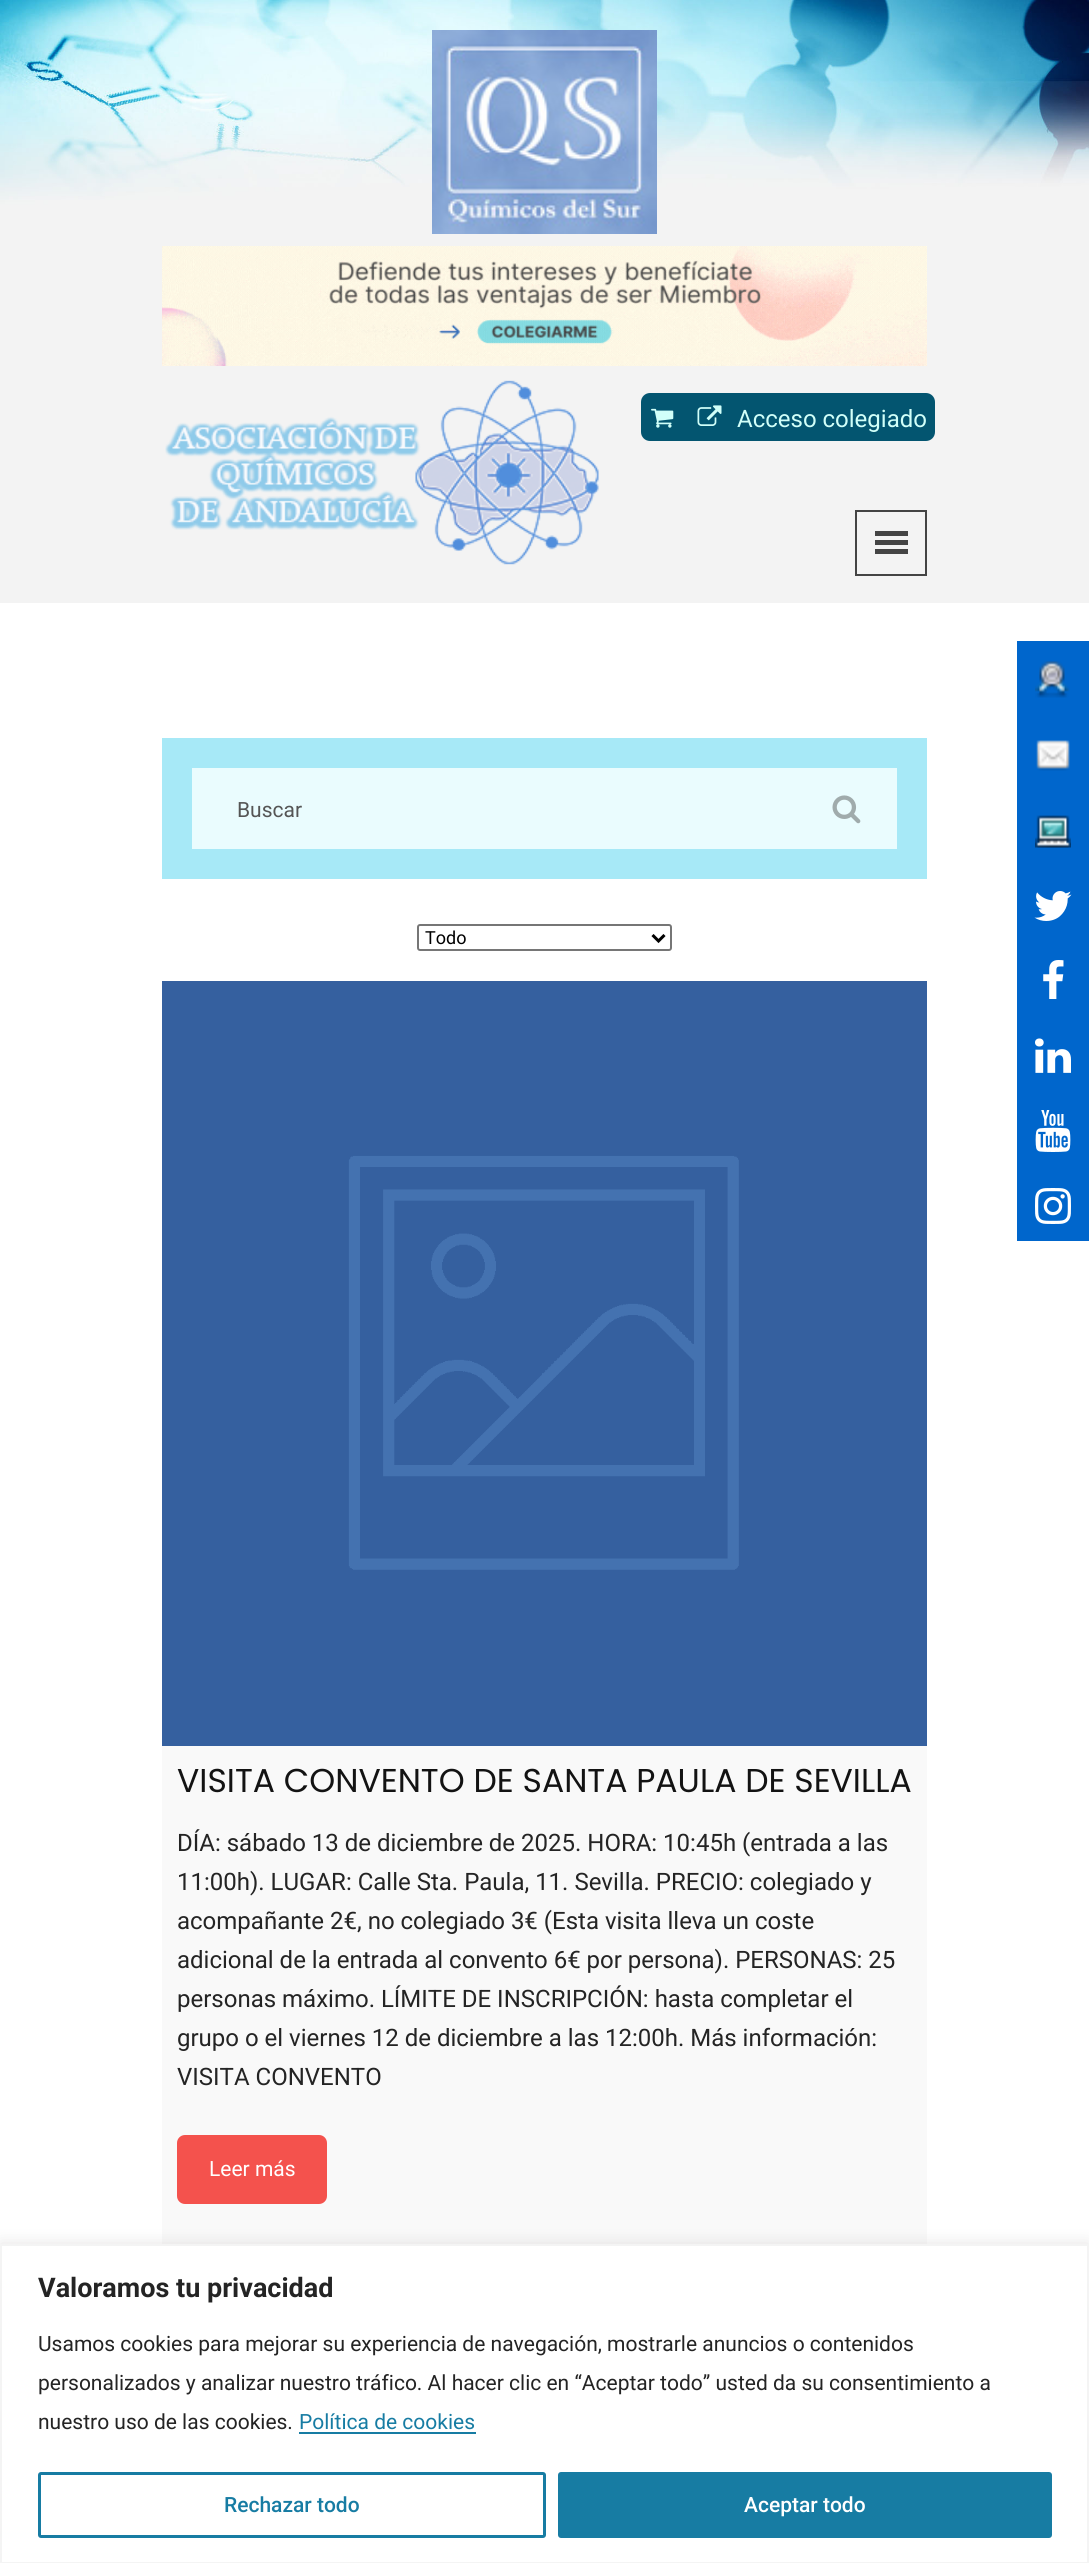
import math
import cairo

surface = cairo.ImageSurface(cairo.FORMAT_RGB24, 1089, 2563)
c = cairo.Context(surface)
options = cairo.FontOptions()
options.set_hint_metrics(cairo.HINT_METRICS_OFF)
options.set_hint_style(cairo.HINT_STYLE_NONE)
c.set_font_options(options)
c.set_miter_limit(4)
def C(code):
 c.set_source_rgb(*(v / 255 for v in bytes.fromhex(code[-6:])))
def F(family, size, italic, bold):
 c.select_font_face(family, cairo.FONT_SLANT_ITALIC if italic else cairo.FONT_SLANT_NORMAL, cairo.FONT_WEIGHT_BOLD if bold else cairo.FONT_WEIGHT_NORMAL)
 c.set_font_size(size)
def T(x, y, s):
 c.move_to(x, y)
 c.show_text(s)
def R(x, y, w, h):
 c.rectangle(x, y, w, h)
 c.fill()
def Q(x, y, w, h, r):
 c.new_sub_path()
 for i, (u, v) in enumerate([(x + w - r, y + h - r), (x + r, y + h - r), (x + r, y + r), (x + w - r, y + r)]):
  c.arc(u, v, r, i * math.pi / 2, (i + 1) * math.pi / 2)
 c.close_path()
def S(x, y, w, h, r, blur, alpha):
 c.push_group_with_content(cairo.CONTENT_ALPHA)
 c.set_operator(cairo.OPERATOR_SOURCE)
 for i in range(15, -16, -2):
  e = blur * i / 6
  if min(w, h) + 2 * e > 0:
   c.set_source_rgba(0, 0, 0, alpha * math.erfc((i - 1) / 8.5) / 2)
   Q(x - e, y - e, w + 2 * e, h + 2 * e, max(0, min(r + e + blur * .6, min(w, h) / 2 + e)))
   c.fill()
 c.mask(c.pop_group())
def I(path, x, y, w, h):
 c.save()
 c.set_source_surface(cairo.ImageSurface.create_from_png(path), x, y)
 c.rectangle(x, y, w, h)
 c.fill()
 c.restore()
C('ffffff')
c.paint()
I('1.png',0,0,1089,603)
I('2.png',432,30,225,204)
I('3.png',162,246,765,120)
I('4.png',165,380,434,185)
C('035570')
Q(641,393,294,48,9)
c.fill()
I('5.png',651,408,23,20)
I('6.png',697,405,25,21)
F('Roboto',24,0,0)
C('d1fff9')
T(737,427,'Acceso colegiado')
c.rectangle(856,511,70,64)
C('444444')
c.stroke()
R(875,531,33,5)
R(875,540,33,5)
R(875,549,33,5)
C('a7e9f7')
R(162,738,765,141)
C('eafcfe')
R(192,768,705,81)
F('Roboto',21,0,0)
C('555555')
T(237,817,'Buscar')
I('7.png',832,795,29,29)
Q(418,925,253,25,2)
C('767676')
c.stroke()
c.new_path()
c.move_to(652.5,935)
c.line_to(658.5,941)
c.line_to(664.5,935)
C('000000')
c.set_line_width(3)
c.stroke()
F('Roboto',18,0,0)
T(425,944,'Todo')
I('8.png',162,981,765,765)
C('f9f9f9')
R(162,1746,765,498)
F('Poppins',33,0,0)
C('131313')
T(177,1792,'VISITA CONVENTO DE SANTA PAULA DE SEVILLA')
F('Roboto',24,0,0)
C('242424')
T(177,1851,'DÍA: sábado 13 de diciembre de 2025. HORA: 10:45h (entrada a las')
T(177,1890,'11:00h). LUGAR: Calle Sta. Paula, 11. Sevilla. PRECIO: colegiado y')
T(177,1929,'acompañante 2€, no colegiado 3€ (Esta visita lleva un coste')
T(177,1968,'adicional de la entrada al convento 6€ por persona). PERSONAS: 25')
T(177,2007,'personas máximo. LÍMITE DE INSCRIPCIÓN: hasta completar el')
T(177,2046,'grupo o el viernes 12 de diciembre a las 12:00h. Más información:')
T(177,2085,'VISITA CONVENTO')
C('f4524d')
Q(177,2135,150,69,8)
c.fill()
F('Roboto',21,0,0)
C('ffffff')
T(209,2176,'Leer más')
C('0066cc')
R(1017,641,72,600)
I('9.png',1035,661,35,37)
I('10.png',1036,740,34,31)
I('11.png',1035,815,36,33)
I('12.png',1034,891,38,30)
I('13.png',1043,960,21,39)
I('14.png',1035,1038,36,35)
I('15.png',1035,1110,36,42)
I('16.png',1035,1188,36,36)
C('acabab')
S(0,2243,1089,319,0,7.5,.3)
C('ffffff')
c.rectangle(1,2245,1087,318)
c.fill_preserve()
C('f4f4f4')
c.set_line_width(2)
c.stroke()
F('Roboto',27,0,1)
C('242424')
T(38,2297,'Valoramos tu privacidad')
F('Roboto',21,0,0)
T(38,2351,'Usamos cookies para mejorar su experiencia de navegación, mostrarle anuncios o contenidos')
T(38,2390,'personalizados y analizar nuestro tráfico. Al hacer clic en “Aceptar todo” usted da su consentimiento a')
T(38,2429,'nuestro uso de las cookies.')
C('177ca3')
T(299,2429,'Política de cookies')
R(299,2432,177,2)
Q(39.5,2473.5,505,63,1.5)
c.set_line_width(3)
c.stroke()
F('Roboto Medium',21,0,0)
T(224,2512,'Rechazar todo')
Q(559.5,2473.5,491,63,1.5)
c.fill_preserve()
c.stroke()
C('ffffff')
T(744,2512,'Aceptar todo')
surface.write_to_png('o.png')
